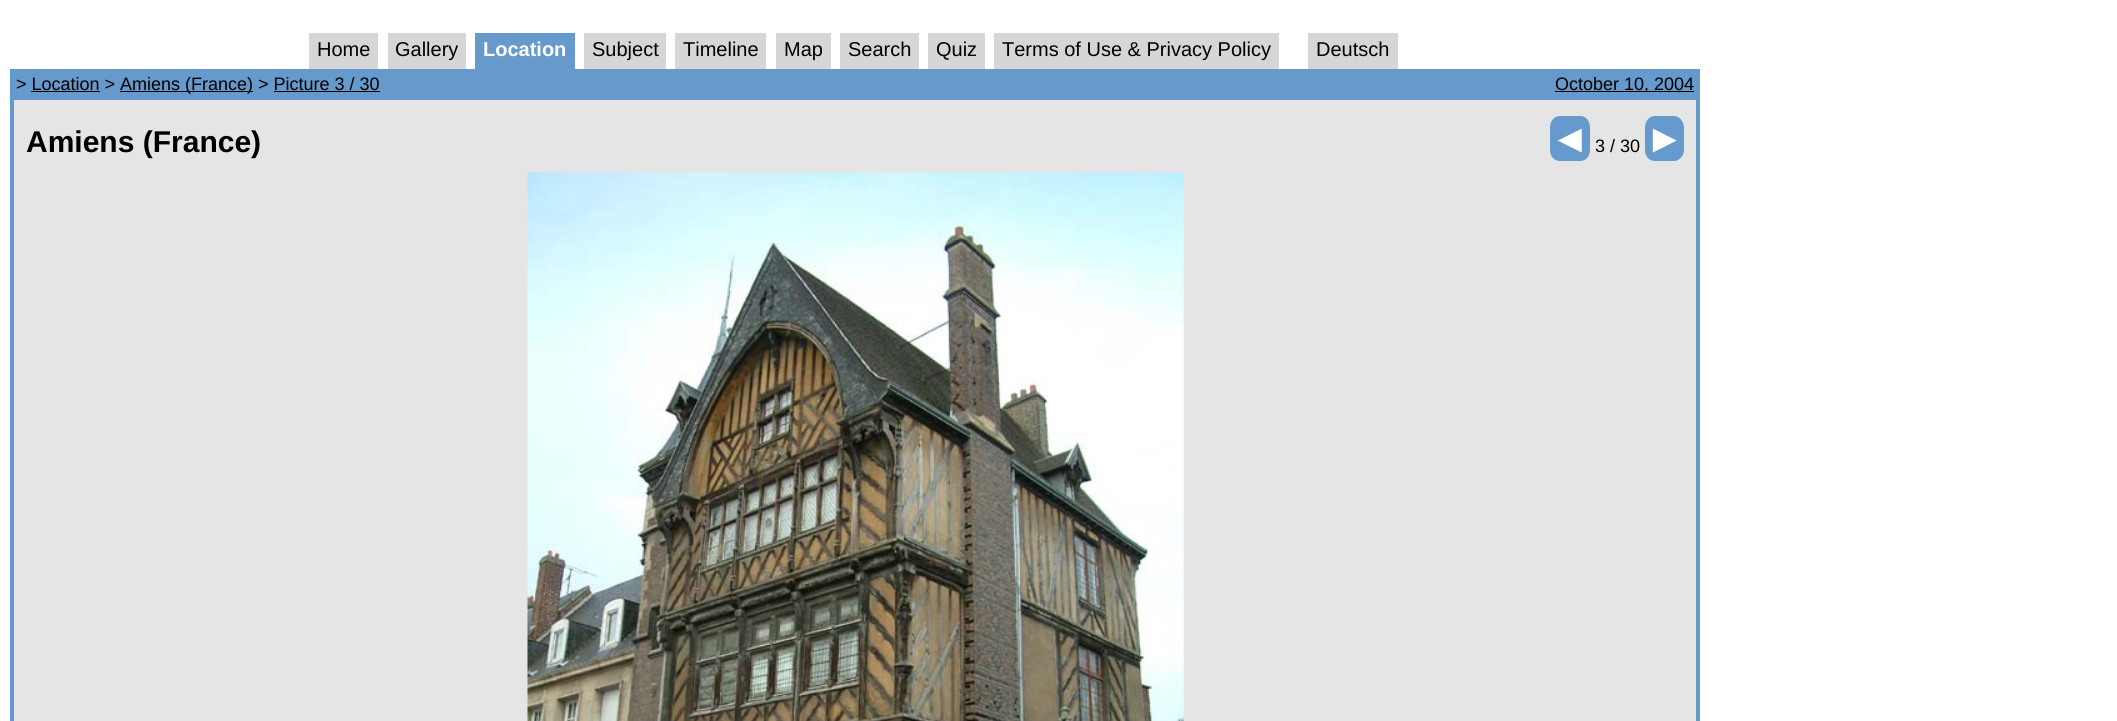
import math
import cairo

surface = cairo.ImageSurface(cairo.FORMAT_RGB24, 2117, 721)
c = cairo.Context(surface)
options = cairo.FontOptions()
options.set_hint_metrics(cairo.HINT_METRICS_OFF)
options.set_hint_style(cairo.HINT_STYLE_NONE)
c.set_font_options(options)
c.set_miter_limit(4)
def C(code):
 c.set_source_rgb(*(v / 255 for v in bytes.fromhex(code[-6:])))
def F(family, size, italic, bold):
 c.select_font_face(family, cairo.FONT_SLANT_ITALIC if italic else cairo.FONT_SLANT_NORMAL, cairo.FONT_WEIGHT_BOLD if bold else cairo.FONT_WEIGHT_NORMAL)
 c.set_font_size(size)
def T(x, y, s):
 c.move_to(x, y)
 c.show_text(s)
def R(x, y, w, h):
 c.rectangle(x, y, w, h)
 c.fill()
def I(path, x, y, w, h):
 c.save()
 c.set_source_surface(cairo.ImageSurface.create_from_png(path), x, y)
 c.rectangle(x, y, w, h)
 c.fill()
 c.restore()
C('ffffff')
c.paint()
C('d6d6d6')
R(309,33,69,36)
F('Liberation Sans',20,0,0)
C('000000')
T(317,56,'Home')
C('d6d6d6')
R(388,33,78,36)
C('000000')
T(395,56,'Gallery')
C('6699cc')
R(475,33,100,36)
F('Liberation Sans',20,0,1)
C('ffffff')
T(483,56,'Location')
C('d6d6d6')
R(584,33,82,36)
F('Liberation Sans',20,0,0)
C('000000')
T(592,56,'Subject')
C('d6d6d6')
R(675,33,91,36)
C('000000')
T(683,56,'Timeline')
C('d6d6d6')
R(776,33,55,36)
C('000000')
T(784,56,'Map')
C('d6d6d6')
R(840,33,79,36)
C('000000')
T(848,56,'Search')
C('d6d6d6')
R(928,33,57,36)
C('000000')
T(936,56,'Quiz')
C('d6d6d6')
R(994,33,285,36)
C('000000')
T(1002,56,'Terms of Use & Privacy Policy')
C('d6d6d6')
R(1308,33,90,36)
C('000000')
T(1316,56,'Deutsch')
C('6699cc')
R(10,69,1690,31)
F('Liberation Sans',18,0,0)
C('000000')
T(16,90,'> Location >')
R(120,91,133,1)
T(120,90,'Amiens (France) > Picture 3 / 30')
R(31,91,69,1)
R(274,91,106,1)
R(1555,91,139,1)
T(1555,90,'October 10, 2004')
C('e5e5e5')
R(14,100,1682,621)
C('6699cc')
R(1696,100,4,621)
R(10,100,4,621)
F('Liberation Sans',30,0,1)
C('000000')
T(26,152,'Amiens (France)')
C('6699cc')
c.new_path()
c.move_to(1560,116)
c.line_to(1580,116)
c.curve_to(1586,116,1590,121,1590,128)
c.line_to(1590,150)
c.curve_to(1590,156,1586,161,1580,161)
c.line_to(1560,161)
c.curve_to(1554,161,1550,156,1550,150)
c.line_to(1550,128)
c.curve_to(1550,121,1554,116,1560,116)
c.close_path()
c.fill()
F('Liberation Sans',40,0,0)
C('ffffff')
T(1550,152,'◄')
F('Liberation Sans',18,0,0)
C('000000')
T(1595,152,'3 / 30')
C('6699cc')
c.new_path()
c.move_to(1655,116)
c.line_to(1674,116)
c.curve_to(1679,116,1684,121,1684,128)
c.line_to(1684,150)
c.curve_to(1684,156,1679,161,1674,161)
c.line_to(1655,161)
c.curve_to(1649,161,1645,156,1645,150)
c.line_to(1645,128)
c.curve_to(1645,121,1649,116,1655,116)
c.close_path()
c.fill()
F('Liberation Sans',40,0,0)
C('ffffff')
T(1645,152,'►')
I('1.png',527,172,657,549)
surface.write_to_png('o.png')
